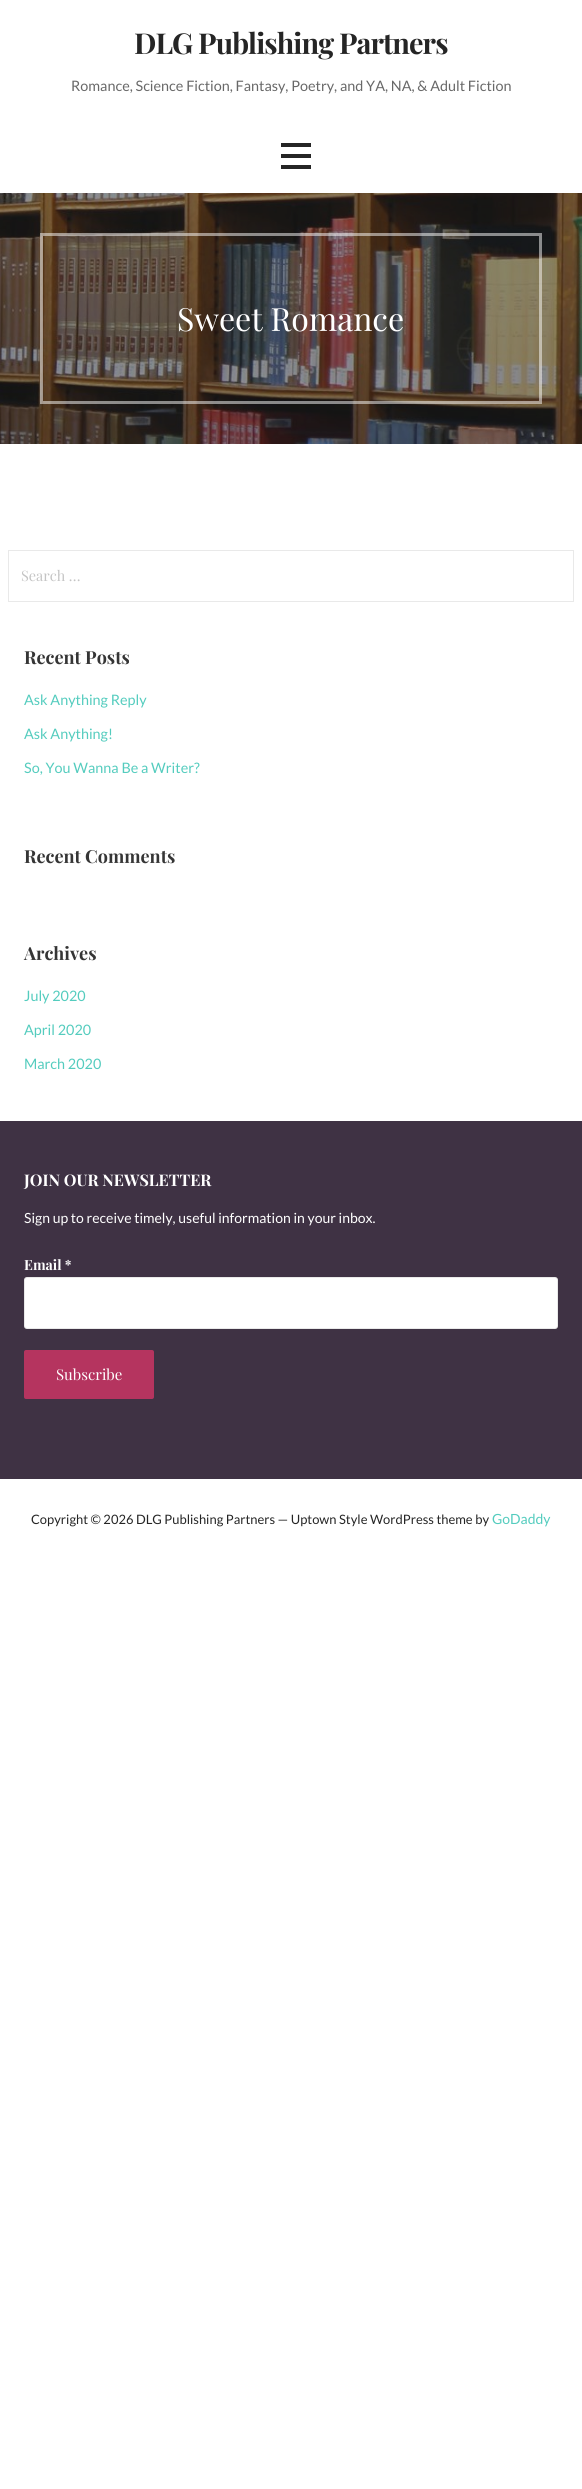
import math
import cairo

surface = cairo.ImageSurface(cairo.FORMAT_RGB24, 582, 2489)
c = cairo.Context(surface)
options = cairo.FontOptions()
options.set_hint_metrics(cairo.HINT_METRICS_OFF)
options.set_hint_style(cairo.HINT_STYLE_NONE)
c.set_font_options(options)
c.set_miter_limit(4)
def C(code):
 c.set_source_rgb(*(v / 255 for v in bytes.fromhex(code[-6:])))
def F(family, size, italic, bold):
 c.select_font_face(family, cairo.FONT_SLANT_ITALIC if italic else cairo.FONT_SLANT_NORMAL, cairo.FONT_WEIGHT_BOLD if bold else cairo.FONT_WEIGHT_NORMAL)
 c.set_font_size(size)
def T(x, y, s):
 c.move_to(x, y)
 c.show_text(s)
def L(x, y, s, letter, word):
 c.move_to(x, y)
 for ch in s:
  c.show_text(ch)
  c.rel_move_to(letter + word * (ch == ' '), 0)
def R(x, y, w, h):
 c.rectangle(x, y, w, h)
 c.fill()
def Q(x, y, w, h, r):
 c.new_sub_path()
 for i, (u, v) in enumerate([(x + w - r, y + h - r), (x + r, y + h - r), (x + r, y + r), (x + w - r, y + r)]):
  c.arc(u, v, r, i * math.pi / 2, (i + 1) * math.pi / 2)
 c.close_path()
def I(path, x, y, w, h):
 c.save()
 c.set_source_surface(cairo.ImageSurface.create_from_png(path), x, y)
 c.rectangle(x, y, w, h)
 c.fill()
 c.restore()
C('ffffff')
c.paint()
F('Playfair Display',28.75,0,1)
C('252525')
L(134,54,'DLG Publishing Partners',-.9,0)
F('Lato',14.4,0,0)
C('686868')
T(71,91,'Romance, Science Fiction, Fantasy, Poetry, and YA, NA, & Adult Fiction')
C('252525')
R(281,143,30,4)
R(281,154,30,4)
R(281,165,30,4)
I('1.png',0,193,582,251)
c.rectangle(41.5,234.5,499,168)
c.set_source_rgba(1,1,1,0.5)
c.set_line_width(3)
c.stroke()
F('Playfair Display',32,0,0)
C('ffffff')
T(177,331,'Sweet Romance')
c.rectangle(8.5,550.5,565,51)
C('e9e9e9')
c.set_line_width(1)
c.stroke()
F('Playfair Display',14.4,0,0)
C('c4c4c4')
T(21,581,'Search …')
F('Playfair Display',18,0,1)
C('353535')
T(24,664,'Recent Posts')
F('Lato',14.4,0,0)
C('54ccbe')
T(24,705,'Ask Anything Reply')
T(24,739,'Ask Anything!')
T(24,773,'So, You Wanna Be a Writer?')
F('Playfair Display',18,0,1)
C('353535')
T(24,863,'Recent Comments')
T(24,960,'Archives')
F('Lato',14.4,0,0)
C('54ccbe')
T(24,1001,'July 2020')
T(24,1035,'April 2020')
T(24,1069,'March 2020')
C('3f3244')
R(0,1121,582,358)
F('Playfair Display',16,0,1)
C('ffffff')
T(24,1186,'JOIN OUR NEWSLETTER')
F('Lato',14,0,0)
T(24,1223,'Sign up to receive timely, useful information in your inbox.')
F('Playfair Display',14,0,1)
T(24,1270,'Email *')
Q(24,1277,534,52,3)
c.fill()
Q(24.5,1277.5,533,51,2.5)
c.set_source_rgba(0.145,0.145,0.145,0.1)
c.stroke()
C('b5345f')
Q(24,1350,130,49,2)
c.fill()
F('Playfair Display',15,0,0)
C('ffffff')
T(56,1380,'Subscribe')
F('Lato',12.95,0,0)
C('252525')
T(31,1524,'Copyright © 2026 DLG Publishing Partners — Uptown Style WordPress theme by')
F('Lato',14,0,0)
C('54ccbe')
T(492,1524,'GoDaddy')
surface.write_to_png('o.png')
